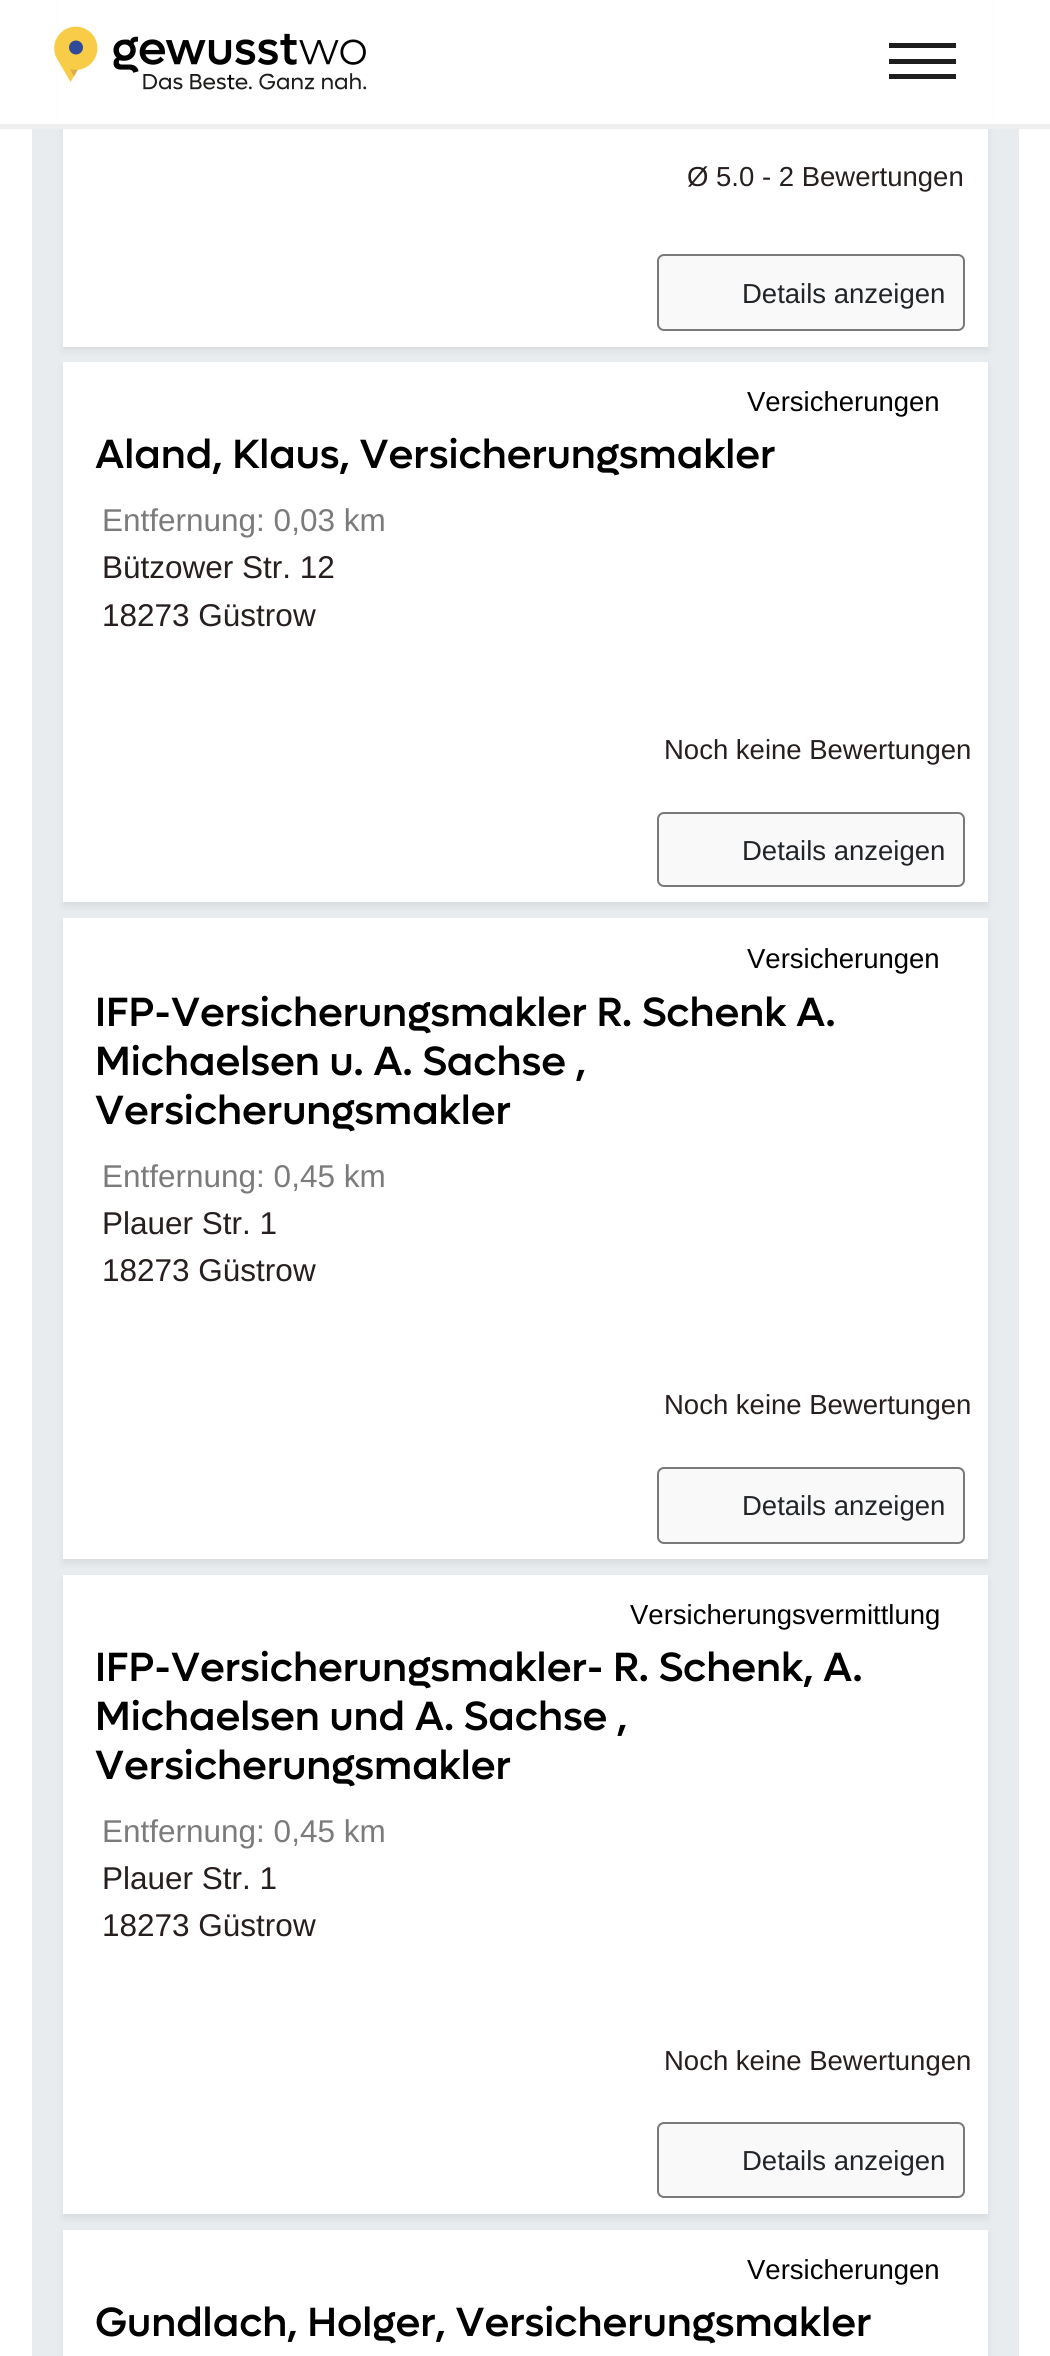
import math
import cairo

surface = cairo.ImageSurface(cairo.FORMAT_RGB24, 1050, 2356)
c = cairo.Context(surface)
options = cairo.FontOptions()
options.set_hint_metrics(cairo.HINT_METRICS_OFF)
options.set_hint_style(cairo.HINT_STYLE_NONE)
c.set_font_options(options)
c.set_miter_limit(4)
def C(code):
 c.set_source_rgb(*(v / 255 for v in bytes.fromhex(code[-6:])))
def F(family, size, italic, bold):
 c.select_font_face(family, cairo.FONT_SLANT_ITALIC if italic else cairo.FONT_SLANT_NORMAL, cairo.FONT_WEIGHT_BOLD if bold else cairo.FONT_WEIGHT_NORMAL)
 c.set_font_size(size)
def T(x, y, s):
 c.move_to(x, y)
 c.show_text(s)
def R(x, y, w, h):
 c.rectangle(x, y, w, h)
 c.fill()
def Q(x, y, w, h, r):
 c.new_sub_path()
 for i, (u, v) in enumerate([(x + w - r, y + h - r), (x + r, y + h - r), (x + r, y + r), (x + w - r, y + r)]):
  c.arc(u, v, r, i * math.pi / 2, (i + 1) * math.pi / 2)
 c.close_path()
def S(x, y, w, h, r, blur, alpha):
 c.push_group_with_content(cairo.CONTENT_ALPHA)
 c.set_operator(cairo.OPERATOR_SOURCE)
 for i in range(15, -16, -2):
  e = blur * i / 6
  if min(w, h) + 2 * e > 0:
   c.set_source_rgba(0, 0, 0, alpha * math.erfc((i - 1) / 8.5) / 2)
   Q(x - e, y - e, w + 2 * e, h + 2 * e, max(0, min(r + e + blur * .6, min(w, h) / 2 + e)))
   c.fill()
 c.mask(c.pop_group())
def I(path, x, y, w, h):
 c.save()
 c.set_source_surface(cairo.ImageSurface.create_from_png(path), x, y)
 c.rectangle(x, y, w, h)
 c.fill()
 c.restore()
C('ffffff')
c.paint()
C('e9ecef')
R(32,129,987,2227)
C('000000')
S(63,-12,925,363,0,4,.07)
C('ffffff')
R(59,0,933,124)
C('eeeeee')
R(0,124,1050,5)
I('1.png',54,26,313,64)
C('1e1e1e')
R(889,59,67,5)
R(889,43,67,5)
R(889,74,67,5)
C('ffffff')
R(63,129,925,218)
F('Liberation Sans',27.5,0,0)
C('271e1e')
T(687,186,'Ø 5.0 - 2 Bewertungen')
C('f9f9f9')
Q(658,255,306,75,6)
c.fill_preserve()
C('797979')
c.stroke()
C('212529')
T(742,303,'Details anzeigen')
C('000000')
S(63,367,925,540,0,4,.07)
C('ffffff')
R(63,362,925,540)
C('000000')
T(747,411,'Versicherungen')
F('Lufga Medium',41,0,0)
T(95,468,'Aland, Klaus, Versicherungsmakler')
F('Liberation Sans',31.5,0,0)
C('7b7b7b')
T(102,531,'Entfernung: 0,03 km')
C('271e1e')
T(102,578,'Bützower Str. 12')
T(102,626,'18273 Güstrow')
F('Liberation Sans',27.5,0,0)
T(664,759,'Noch keine Bewertungen')
C('f9f9f9')
Q(658,813,306,73,6)
c.fill_preserve()
C('797979')
c.stroke()
C('212529')
T(742,860,'Details anzeigen')
C('000000')
S(63,923,925,641,0,4,.07)
C('ffffff')
R(63,918,925,641)
C('000000')
T(747,968,'Versicherungen')
F('Lufga Medium',41,0,0)
T(95,1026,'IFP-Versicherungsmakler R. Schenk A.')
T(95,1075,'Michaelsen u. A. Sachse ,')
T(95,1124,'Versicherungsmakler')
F('Liberation Sans',31.5,0,0)
C('7b7b7b')
T(102,1187,'Entfernung: 0,45 km')
C('271e1e')
T(102,1234,'Plauer Str. 1')
T(102,1281,'18273 Güstrow')
F('Liberation Sans',27.5,0,0)
T(664,1414,'Noch keine Bewertungen')
C('f9f9f9')
Q(658,1468,306,75,6)
c.fill_preserve()
C('797979')
c.stroke()
C('212529')
T(742,1515,'Details anzeigen')
C('000000')
S(63,1580,925,639,0,4,.07)
C('ffffff')
R(63,1575,925,639)
C('000000')
T(630,1624,'Versicherungsvermittlung')
F('Lufga Medium',41,0,0)
T(95,1681,'IFP-Versicherungsmakler- R. Schenk, A.')
T(95,1730,'Michaelsen und A. Sachse ,')
T(95,1779,'Versicherungsmakler')
F('Liberation Sans',31.5,0,0)
C('7b7b7b')
T(102,1842,'Entfernung: 0,45 km')
C('271e1e')
T(102,1889,'Plauer Str. 1')
T(102,1936,'18273 Güstrow')
F('Liberation Sans',27.5,0,0)
T(664,2070,'Noch keine Bewertungen')
C('f9f9f9')
Q(658,2123,306,74,6)
c.fill_preserve()
C('797979')
c.stroke()
C('212529')
T(742,2170,'Details anzeigen')
C('000000')
S(63,2234,925,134,0,4,.07)
C('ffffff')
R(63,2230,925,126)
C('000000')
T(747,2279,'Versicherungen')
F('Lufga Medium',41,0,0)
T(95,2336,'Gundlach, Holger, Versicherungsmakler')
surface.write_to_png('o.png')
